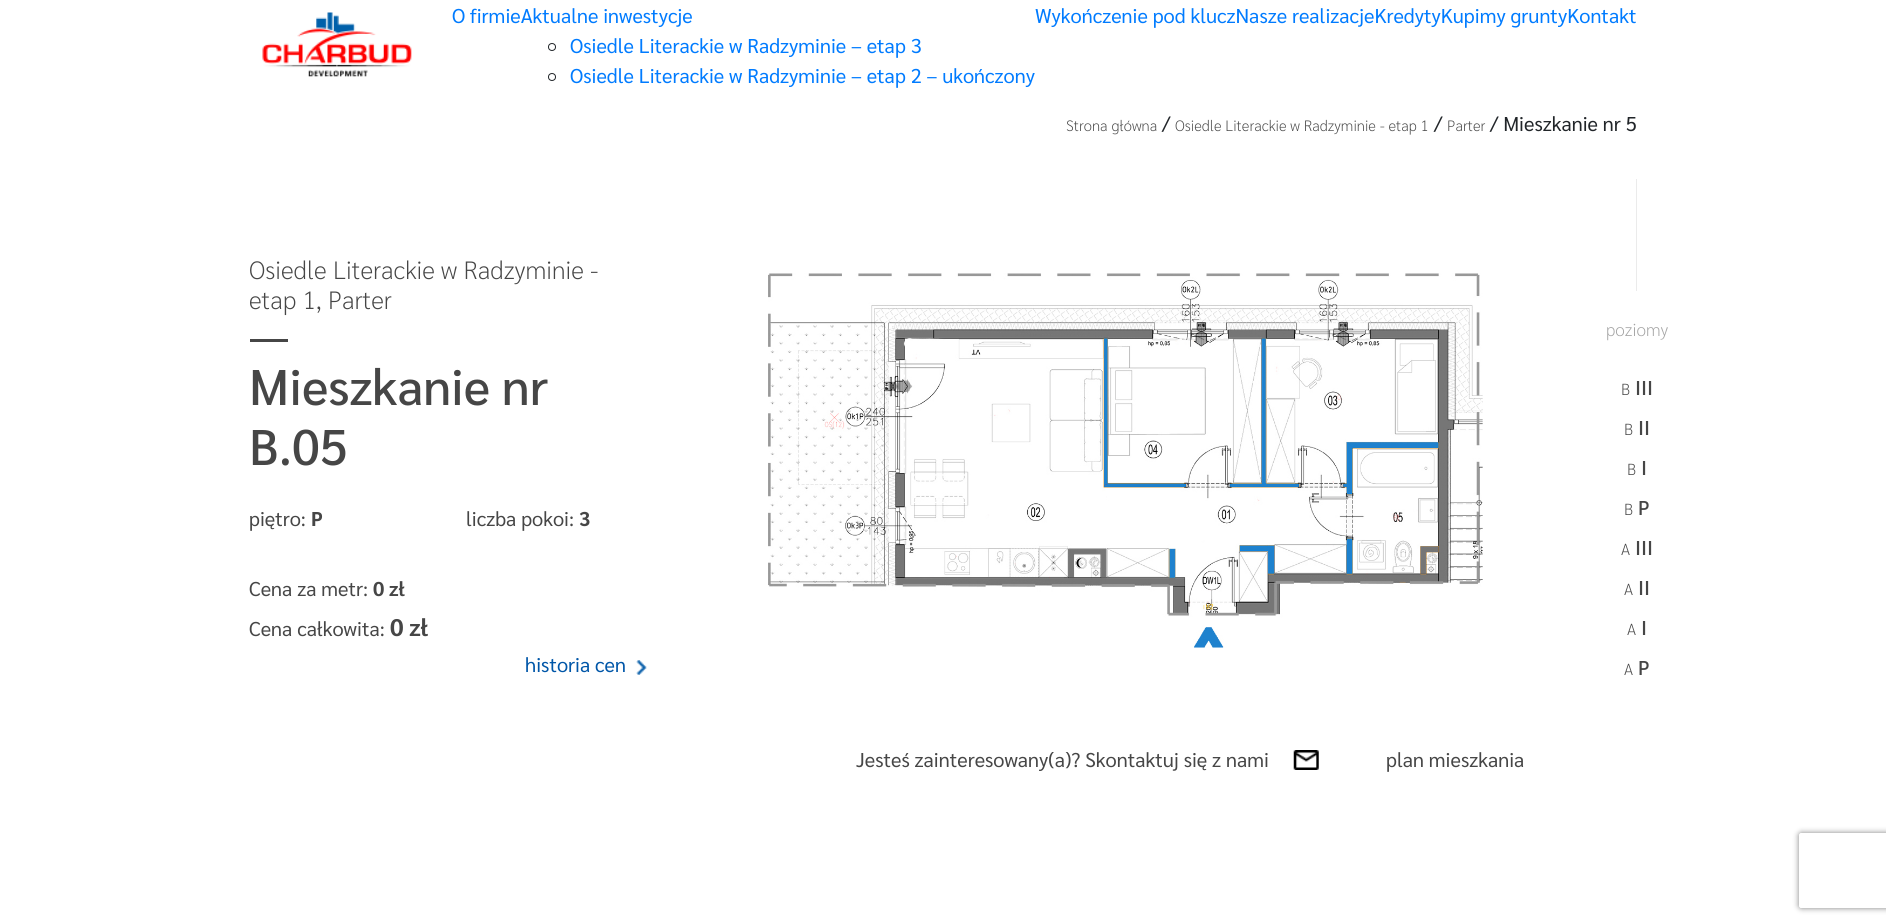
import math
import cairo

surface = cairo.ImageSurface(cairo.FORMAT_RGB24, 1886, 924)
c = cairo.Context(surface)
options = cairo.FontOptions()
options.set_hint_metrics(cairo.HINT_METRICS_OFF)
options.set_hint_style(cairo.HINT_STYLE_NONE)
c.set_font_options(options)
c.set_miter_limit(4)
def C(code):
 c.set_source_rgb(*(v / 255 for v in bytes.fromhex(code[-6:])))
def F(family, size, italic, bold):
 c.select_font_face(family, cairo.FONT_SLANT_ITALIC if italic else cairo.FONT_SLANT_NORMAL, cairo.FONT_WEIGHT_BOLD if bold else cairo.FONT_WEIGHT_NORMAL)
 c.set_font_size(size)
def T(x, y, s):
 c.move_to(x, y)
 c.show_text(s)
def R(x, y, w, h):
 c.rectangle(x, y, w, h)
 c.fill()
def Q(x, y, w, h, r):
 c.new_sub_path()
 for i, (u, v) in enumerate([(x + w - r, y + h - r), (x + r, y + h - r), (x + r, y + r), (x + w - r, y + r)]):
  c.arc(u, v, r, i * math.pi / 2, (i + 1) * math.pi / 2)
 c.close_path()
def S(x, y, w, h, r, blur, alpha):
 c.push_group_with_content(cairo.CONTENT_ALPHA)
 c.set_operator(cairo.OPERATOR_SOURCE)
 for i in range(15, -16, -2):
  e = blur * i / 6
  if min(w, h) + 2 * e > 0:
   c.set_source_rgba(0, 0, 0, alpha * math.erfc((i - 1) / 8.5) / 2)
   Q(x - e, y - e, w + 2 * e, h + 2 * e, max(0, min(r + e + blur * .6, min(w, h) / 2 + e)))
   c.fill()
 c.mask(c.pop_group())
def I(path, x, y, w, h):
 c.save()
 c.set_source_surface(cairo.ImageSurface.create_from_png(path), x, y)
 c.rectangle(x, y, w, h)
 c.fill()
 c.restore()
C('ffffff')
c.paint()
I('1.png',262,12,150,65)
F('Sarabun',20,0,0)
C('007bff')
T(452,23,'O firmieAktualne inwestycje')
T(1035,23,'Wykończenie pod kluczNasze realizacjeKredytyKupimy gruntyKontakt')
c.new_path()
c.arc(552,47,3.5,0,2 * math.pi)
C('212529')
c.set_line_width(1)
c.stroke()
C('007bff')
T(570,53,'Osiedle Literackie w Radzyminie – etap 3')
c.new_path()
c.arc(552,77,3.5,0,2 * math.pi)
C('212529')
c.stroke()
C('007bff')
T(570,83,'Osiedle Literackie w Radzyminie – etap 2 – ukończony')
F('Sarabun ExtraLight',15,0,0)
C('464646')
T(1066,131,'Strona główna')
F('Sarabun',20,0,0)
C('212529')
T(1162,131,'/')
F('Sarabun ExtraLight',15,0,0)
C('464646')
T(1175,131,'Osiedle Literackie w Radzyminie - etap 1')
F('Sarabun',20,0,0)
C('212529')
T(1434,131,'/')
F('Sarabun ExtraLight',15,0,0)
C('464646')
T(1447,131,'Parter')
F('Sarabun',20,0,0)
C('212529')
T(1490,131,'/ Mieszkanie nr 5')
F('Sarabun ExtraLight',25,0,0)
C('464646')
T(249,279,'Osiedle Literackie w Radzyminie -')
T(249,309,'etap 1, Parter')
R(250,339,38,3)
F('Sarabun Medium',50,0,0)
T(249,405,'Mieszkanie nr')
T(249,465,'B.05')
F('Sarabun',20,0,0)
T(249,526,'piętro:')
F('Sarabun',20,0,1)
T(311,526,'P')
F('Sarabun',20,0,0)
T(466,526,'liczba pokoi:')
F('Sarabun',20,0,1)
T(579,526,'3')
F('Sarabun',20,0,0)
T(249,596,'Cena za metr:')
F('Sarabun',20,0,1)
T(373,596,'0 zł')
F('Sarabun',20,0,0)
T(249,636,'Cena całkowita:')
F('Sarabun',24,0,1)
T(390,636,'0 zł')
F('Sarabun',20,0,0)
C('0056a8')
T(525,672,'historia cen')
I('2.png',636,660,11,15)
I('3.png',768,273,715,375)
C('ebebeb')
R(1636,179,1,112)
F('Sarabun ExtraLight',17.5,0,0)
C('a3a3a3')
T(1606,336,'poziomy')
F('Sarabun ExtraLight',16,0,0)
C('464646')
T(1621,395,'B')
F('Sarabun Medium',20,0,0)
T(1635,395,'III')
F('Sarabun ExtraLight',16,0,0)
T(1624,435,'B')
F('Sarabun Medium',20,0,0)
T(1638,435,'II')
F('Sarabun ExtraLight',16,0,0)
T(1627,475,'B')
F('Sarabun Medium',20,0,0)
T(1641,475,'I')
F('Sarabun ExtraLight',16,0,0)
T(1624,515,'B')
F('Sarabun Medium',20,0,0)
T(1638,515,'P')
F('Sarabun ExtraLight',16,0,0)
T(1621,555,'A')
F('Sarabun Medium',20,0,0)
T(1635,555,'III')
F('Sarabun ExtraLight',16,0,0)
T(1624,595,'A')
F('Sarabun Medium',20,0,0)
T(1638,595,'II')
F('Sarabun ExtraLight',16,0,0)
T(1627,635,'A')
F('Sarabun Medium',20,0,0)
T(1641,635,'I')
F('Sarabun ExtraLight',16,0,0)
T(1624,675,'A')
F('Sarabun Medium',20,0,0)
T(1638,675,'P')
I('4.png',1293,750,26,20)
F('Sarabun',20,0,0)
T(856,767,'Jesteś zainteresowany(a)? Skontaktuj się z nami')
T(1386,767,'plan mieszkania')
c.save()
c.set_fill_rule(cairo.FILL_RULE_EVEN_ODD)
c.new_path()
c.move_to(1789,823)
c.line_to(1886,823)
c.line_to(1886,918)
c.line_to(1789,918)
c.close_path()
c.move_to(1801.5,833)
c.line_to(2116.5,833)
c.curve_to(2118,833,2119,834,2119,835.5)
c.line_to(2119,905.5)
c.curve_to(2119,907,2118,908,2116.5,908)
c.line_to(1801.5,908)
c.curve_to(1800,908,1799,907,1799,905.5)
c.line_to(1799,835.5)
c.curve_to(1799,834,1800,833,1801.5,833)
c.close_path()
c.clip()
C('808080')
S(1799,833,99,75,2.5,3,1)
c.restore()
surface.write_to_png('o.png')
